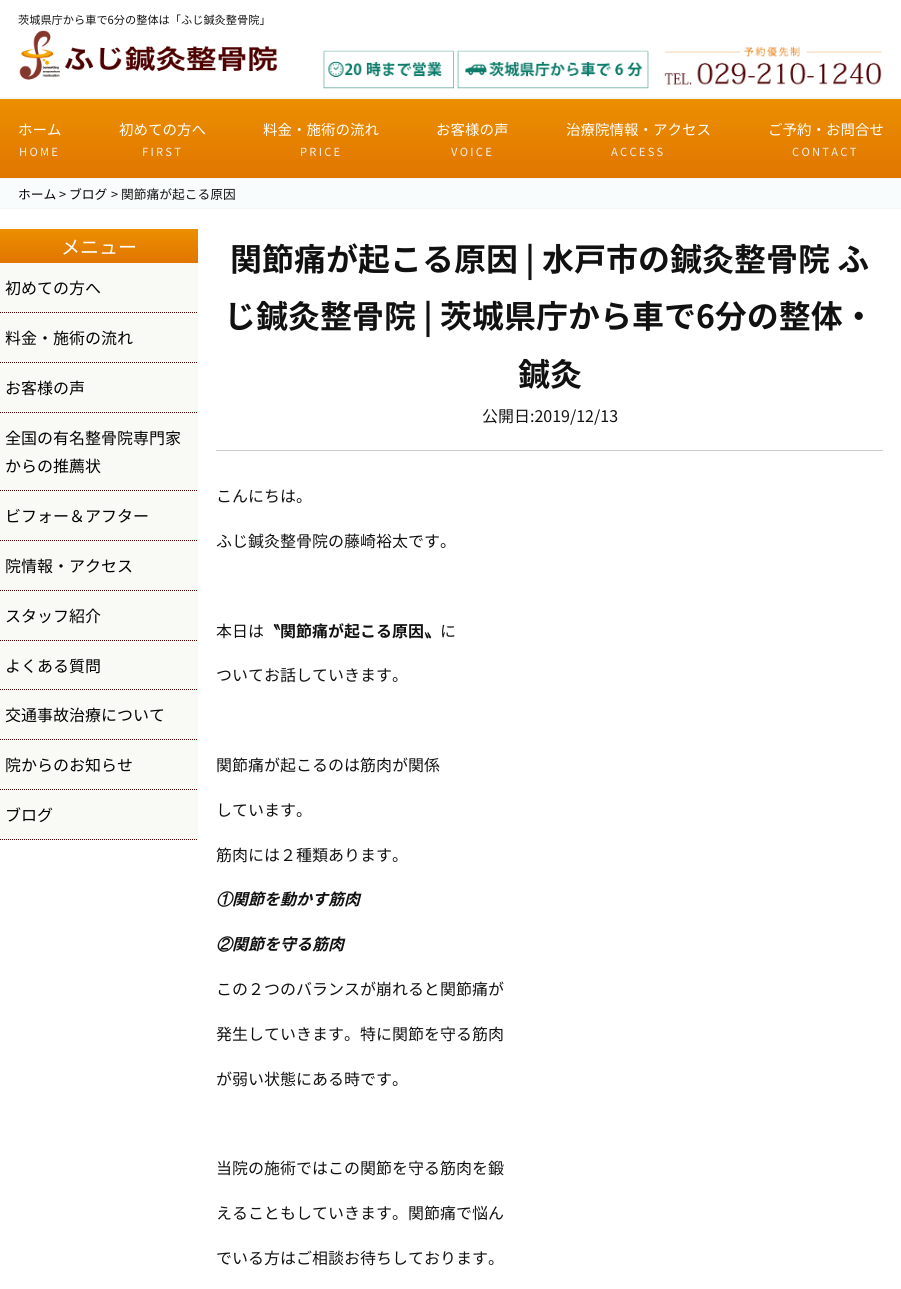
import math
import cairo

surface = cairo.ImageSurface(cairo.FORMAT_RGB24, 901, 1289)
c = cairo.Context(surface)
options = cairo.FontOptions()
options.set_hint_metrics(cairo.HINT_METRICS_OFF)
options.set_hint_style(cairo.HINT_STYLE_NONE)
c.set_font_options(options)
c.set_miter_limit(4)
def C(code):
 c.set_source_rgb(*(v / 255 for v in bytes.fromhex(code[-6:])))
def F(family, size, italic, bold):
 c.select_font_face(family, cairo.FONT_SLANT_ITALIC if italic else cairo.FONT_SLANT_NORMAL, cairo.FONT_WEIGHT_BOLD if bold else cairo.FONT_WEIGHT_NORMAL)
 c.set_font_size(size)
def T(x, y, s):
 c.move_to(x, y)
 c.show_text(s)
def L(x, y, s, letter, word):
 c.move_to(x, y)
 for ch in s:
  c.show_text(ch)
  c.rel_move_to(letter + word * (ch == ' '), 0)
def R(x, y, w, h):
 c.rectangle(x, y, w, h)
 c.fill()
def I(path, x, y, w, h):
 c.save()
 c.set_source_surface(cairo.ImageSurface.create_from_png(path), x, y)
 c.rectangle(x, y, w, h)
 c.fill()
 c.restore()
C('ffffff')
c.paint()
F('Noto Sans JP',11.2,0,0)
C('111111')
T(18,24,'茨城県庁から車で6分の整体は「ふじ鍼灸整骨院」')
C('f5f5f5')
R(0,97,901,2)
I('1.png',19,30,259,50)
I('2.png',323,46,559,43)
gradient = cairo.LinearGradient(451,99,451,178)
gradient.add_color_stop_rgba(0,0.922,0.561,0,1)
gradient.add_color_stop_rgba(1,0.882,0.459,0,1)
c.set_source(gradient)
R(0,99,901,79)
C('f5f5f5')
R(0,178,901,1)
F('Noto Sans JP',14.5,0,0)
C('ffffff')
T(18,135,'ホーム')
F('Noto Sans JP',11.2,0,0)
C('f0f0f0')
L(19,156,'HOME',2.25,0)
F('Noto Sans JP',14.5,0,0)
C('ffffff')
T(119,135,'初めての方へ')
F('Noto Sans JP',11.2,0,0)
C('f0f0f0')
L(142,156,'FIRST',2.25,0)
F('Noto Sans JP',14.5,0,0)
C('ffffff')
T(263,135,'料金・施術の流れ')
F('Noto Sans JP',11.2,0,0)
C('f0f0f0')
L(300,156,'PRICE',2.25,0)
F('Noto Sans JP',14.5,0,0)
C('ffffff')
T(436,135,'お客様の声')
F('Noto Sans JP',11.2,0,0)
C('f0f0f0')
L(451,156,'VOICE',2.25,0)
F('Noto Sans JP',14.5,0,0)
C('ffffff')
T(566,135,'治療院情報・アクセス')
F('Noto Sans JP',11.2,0,0)
C('f0f0f0')
L(611,156,'ACCESS',2.25,0)
F('Noto Sans JP',14.5,0,0)
C('ffffff')
T(768,135,'ご予約・お問合せ')
F('Noto Sans JP',11.2,0,0)
C('f0f0f0')
L(792,156,'CONTACT',2.25,0)
C('f9fcfc')
R(0,179,901,29)
C('f5f5f5')
R(0,208,901,1)
F('Noto Sans JP',12.75,0,0)
C('000000')
T(18,199,'ホーム')
C('111111')
T(59,199,'>')
C('000000')
T(69,199,'ブログ')
C('111111')
T(111,199,'> 関節痛が起こる原因')
C('f9f9f5')
R(0,263,198,577)
gradient = cairo.LinearGradient(99,229,99,263)
gradient.add_color_stop_rgba(0,0.922,0.561,0,1)
gradient.add_color_stop_rgba(1,0.882,0.459,0,1)
c.set_source(gradient)
R(0,229,198,34)
F('Noto Sans JP',19,0,0)
C('ffffff')
T(61,254,'メニュー')
c.new_path()
c.move_to(0,312.5)
c.line_to(198,312.5)
C('4e0000')
c.set_line_width(1)
c.set_dash([1,1])
c.stroke()
F('Noto Sans JP',16,0,0)
C('000000')
T(5,294,'初めての方へ')
c.new_path()
c.move_to(0,362.5)
c.line_to(198,362.5)
C('4e0000')
c.stroke()
C('000000')
T(5,344,'料金・施術の流れ')
c.new_path()
c.move_to(0,412.5)
c.line_to(198,412.5)
C('4e0000')
c.stroke()
C('000000')
T(5,394,'お客様の声')
c.new_path()
c.move_to(0,490.5)
c.line_to(198,490.5)
C('4e0000')
c.stroke()
C('000000')
T(5,444,'全国の有名整骨院専門家')
T(5,472,'からの推薦状')
c.new_path()
c.move_to(0,540.5)
c.line_to(198,540.5)
C('4e0000')
c.stroke()
C('000000')
T(5,522,'ビフォー＆アフター')
c.new_path()
c.move_to(0,590.5)
c.line_to(198,590.5)
C('4e0000')
c.stroke()
C('000000')
T(5,572,'院情報・アクセス')
c.new_path()
c.move_to(0,640.5)
c.line_to(198,640.5)
C('4e0000')
c.stroke()
C('000000')
T(5,622,'スタッフ紹介')
c.new_path()
c.move_to(0,689.5)
c.line_to(198,689.5)
C('4e0000')
c.stroke()
C('000000')
T(5,672,'よくある質問')
c.new_path()
c.move_to(0,739.5)
c.line_to(198,739.5)
C('4e0000')
c.stroke()
C('000000')
T(5,721,'交通事故治療について')
c.new_path()
c.move_to(0,789.5)
c.line_to(198,789.5)
C('4e0000')
c.stroke()
C('000000')
T(5,771,'院からのお知らせ')
c.new_path()
c.move_to(0,839.5)
c.line_to(198,839.5)
C('4e0000')
c.stroke()
C('000000')
T(5,821,'ブログ')
C('cccccc')
R(216,450,667,1)
F('Noto Sans JP',32,0,1)
C('111111')
T(230,271,'関節痛が起こる原因 | 水戸市の鍼灸整骨院 ふ')
T(224,328,'じ鍼灸整骨院 | 茨城県庁から車で6分の整体・')
T(518,386,'鍼灸')
F('Noto Sans JP',16,0,0)
T(482,422,'公開日:2019/12/13')
T(216,502,'こんにちは。')
T(216,547,'ふじ鍼灸整骨院の藤崎裕太です。')
T(216,637,'本日は')
F('WenQuanYi Zen Hei',16,0,1)
T(264,637,'〝')
F('Noto Sans JP',16,0,1)
T(280,637,'関節痛が起こる原因')
F('WenQuanYi Zen Hei',16,0,1)
T(424,637,'〟')
F('Noto Sans JP',16,0,0)
T(440,637,'に')
T(216,681,'ついてお話していきます。')
T(216,771,'関節痛が起こるのは筋肉が関係')
T(216,816,'しています。')
T(216,861,'筋肉には２種類あります。')
F('WenQuanYi Zen Hei',16,1,1)
T(216,905,'①')
F('Noto Sans JP',16,1,1)
T(232,905,'関節を動かす筋肉')
F('WenQuanYi Zen Hei',16,1,1)
T(216,950,'②')
F('Noto Sans JP',16,1,1)
T(232,950,'関節を守る筋肉')
F('Noto Sans JP',16,0,0)
T(216,995,'この２つのバランスが崩れると関節痛が')
T(216,1040,'発生していきます。特に関節を守る筋肉')
T(216,1085,'が弱い状態にある時です。')
T(216,1174,'当院の施術ではこの関節を守る筋肉を鍛')
T(216,1219,'えることもしていきます。関節痛で悩ん')
T(216,1264,'でいる方はご相談お待ちしております。')
surface.write_to_png('o.png')
